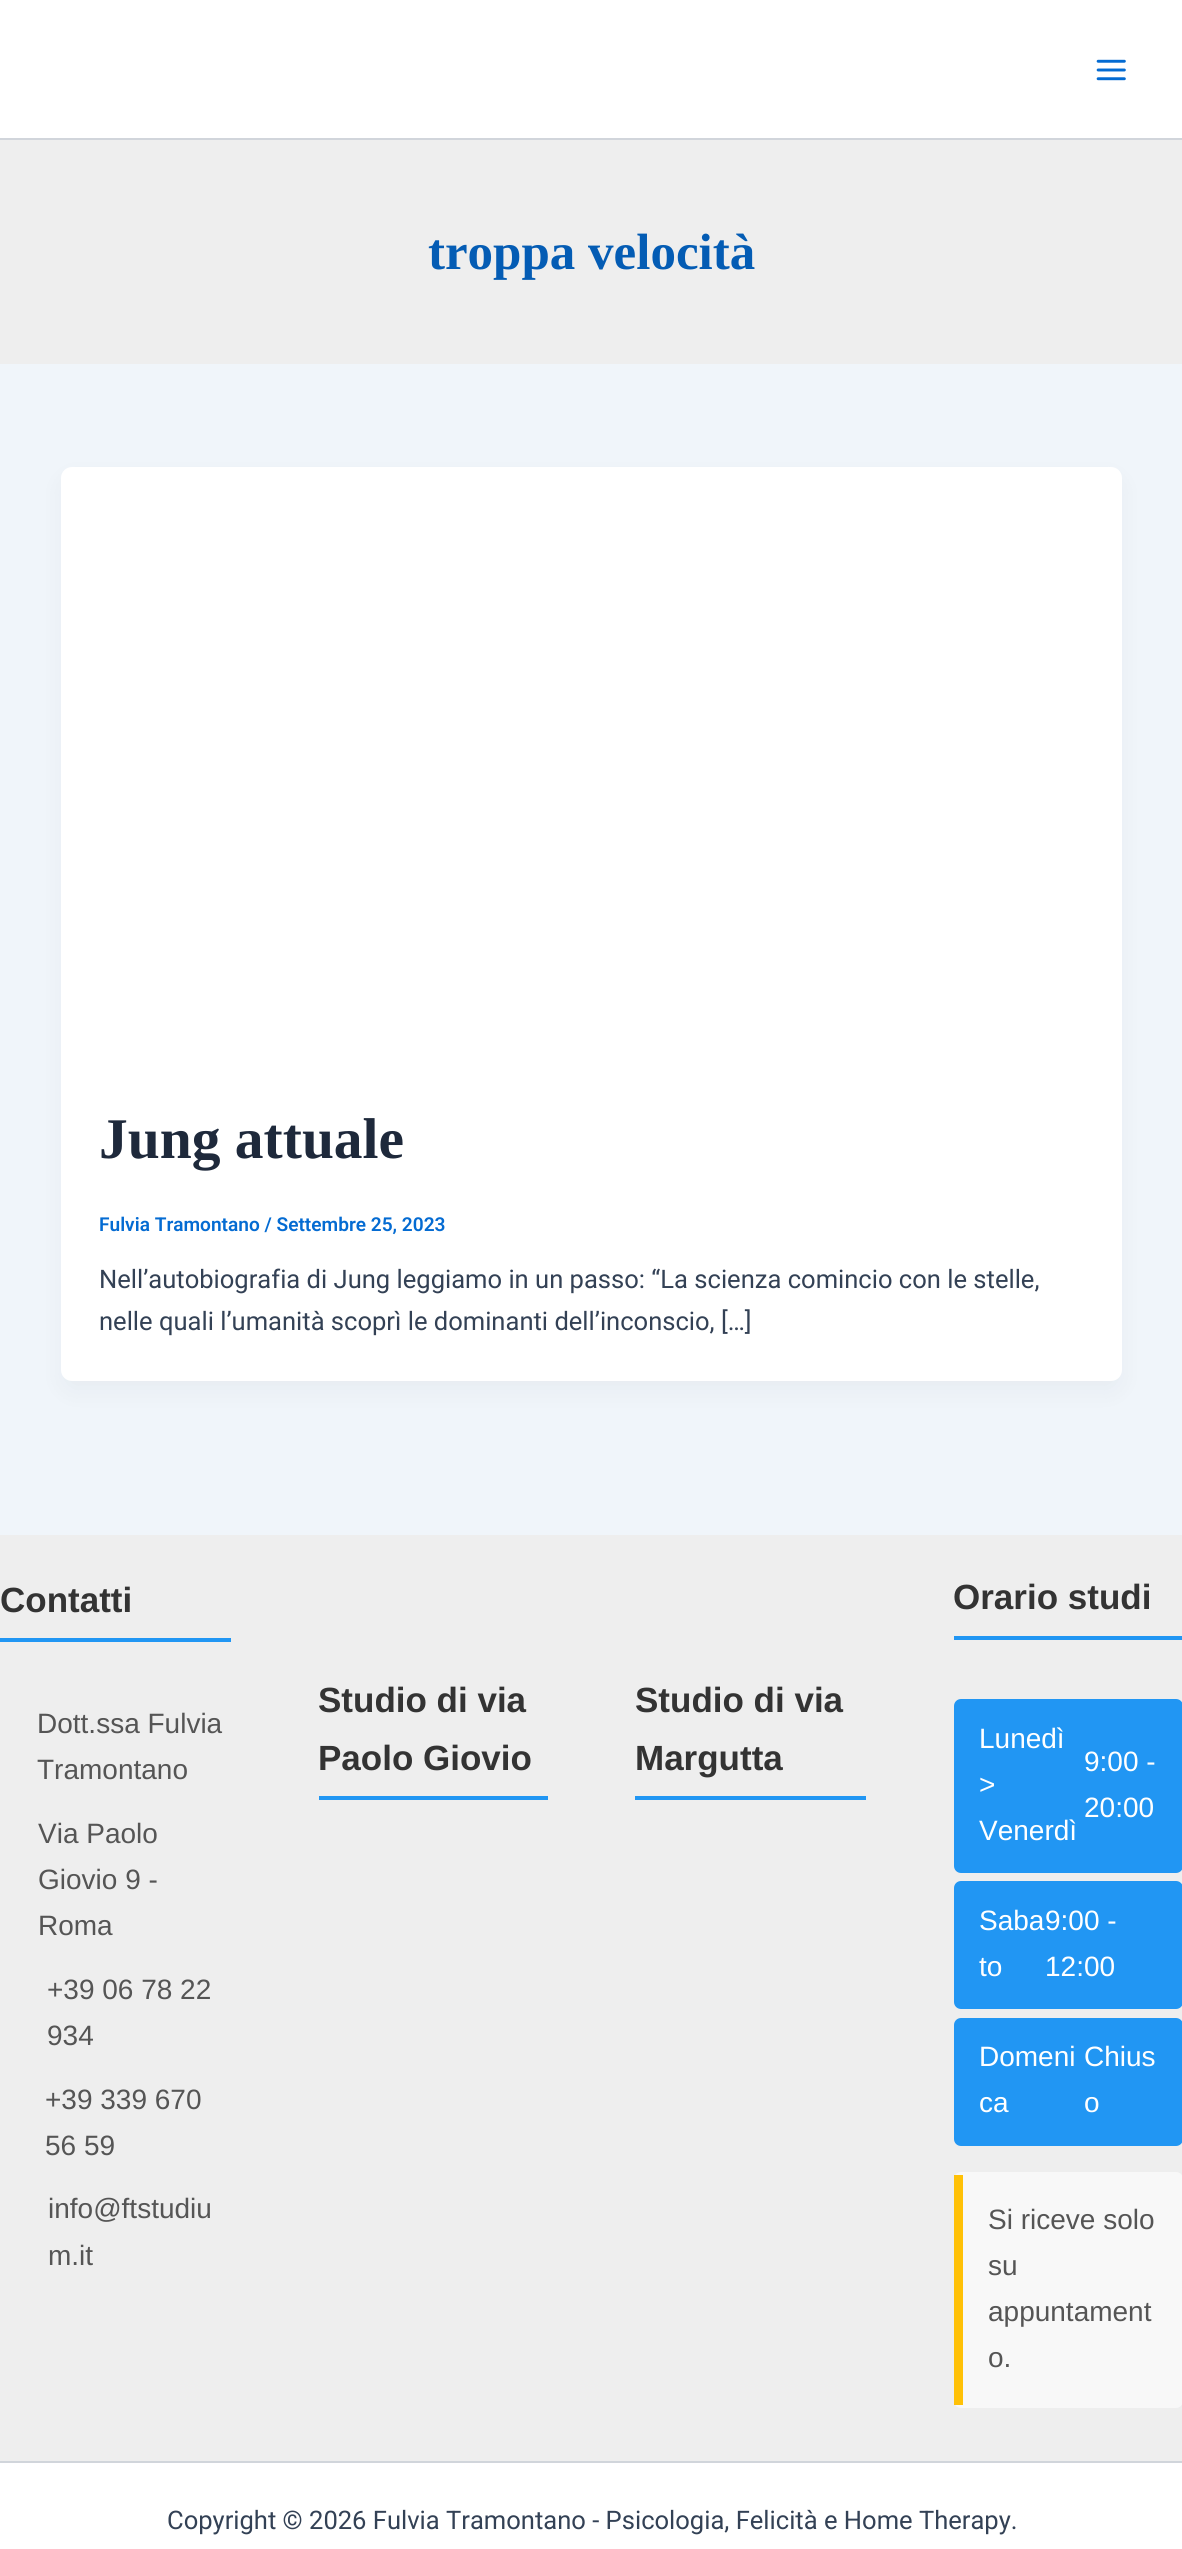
import math
import cairo

surface = cairo.ImageSurface(cairo.FORMAT_RGB24, 1182, 2549)
c = cairo.Context(surface)
options = cairo.FontOptions()
options.set_hint_metrics(cairo.HINT_METRICS_OFF)
options.set_hint_style(cairo.HINT_STYLE_NONE)
c.set_font_options(options)
c.set_miter_limit(4)
def C(code):
 c.set_source_rgb(*(v / 255 for v in bytes.fromhex(code[-6:])))
def F(family, size, italic, bold):
 c.select_font_face(family, cairo.FONT_SLANT_ITALIC if italic else cairo.FONT_SLANT_NORMAL, cairo.FONT_WEIGHT_BOLD if bold else cairo.FONT_WEIGHT_NORMAL)
 c.set_font_size(size)
def T(x, y, s):
 c.move_to(x, y)
 c.show_text(s)
def R(x, y, w, h):
 c.rectangle(x, y, w, h)
 c.fill()
def Q(x, y, w, h, r):
 c.new_sub_path()
 for i, (u, v) in enumerate([(x + w - r, y + h - r), (x + r, y + h - r), (x + r, y + r), (x + w - r, y + r)]):
  c.arc(u, v, r, i * math.pi / 2, (i + 1) * math.pi / 2)
 c.close_path()
def S(x, y, w, h, r, blur, alpha):
 c.push_group_with_content(cairo.CONTENT_ALPHA)
 c.set_operator(cairo.OPERATOR_SOURCE)
 for i in range(15, -16, -2):
  e = blur * i / 6
  if min(w, h) + 2 * e > 0:
   c.set_source_rgba(0, 0, 0, alpha * math.erfc((i - 1) / 8.5) / 2)
   Q(x - e, y - e, w + 2 * e, h + 2 * e, max(0, min(r + e + blur * .6, min(w, h) / 2 + e)))
   c.fill()
 c.mask(c.pop_group())
def I(path, x, y, w, h):
 c.save()
 c.set_source_surface(cairo.ImageSurface.create_from_png(path), x, y)
 c.rectangle(x, y, w, h)
 c.fill()
 c.restore()
C('f0f5fa')
c.paint()
C('ffffff')
R(0,0,1182,138)
C('d1d5db')
R(0,138,1182,2)
I('1.png',1096,59,30,22)
C('eeeeee')
R(0,140,1182,224)
F('Liberation Serif',51,0,1)
C('045cb4')
T(428,269,'troppa velocità')
C('101828')
S(65,481,1053,907,7,13,.05)
C('ffffff')
Q(61,467,1061,914,11)
c.fill()
F('Liberation Serif',57.5,0,1)
C('1e293b')
T(99,1158,'Jung attuale')
F('Roboto SemiBold',19.1,0,0)
C('046bd2')
T(99,1231,'Fulvia Tramontano / Settembre 25, 2023')
F('Roboto',25.55,0,0)
C('334155')
T(99,1288,'Nell’autobiografia di Jung leggiamo in un passo: “La scienza comincio con le stelle,')
T(99,1330,'nelle quali l’umanità scoprì le dominanti dell’inconscio, […]')
C('eeeeee')
R(0,1535,1182,926)
C('2196f3')
R(0,1638,231,4)
F('Liberation Sans',35,0,1)
C('333333')
T(0,1612,'Contatti')
F('Liberation Sans',28,0,0)
C('555555')
T(37,1733,'Dott.ssa Fulvia')
T(37,1779,'Tramontano')
T(38,1843,'Via Paolo')
T(38,1889,'Giovio 9 -')
T(38,1935,'Roma')
T(47,1999,'+39 06 78 22')
T(47,2045,'934')
T(45,2109,'+39 339 670')
T(45,2155,'56 59')
T(48,2218,'info@ftstudiu')
T(48,2265,'m.it')
C('2196f3')
R(319,1796,229,4)
F('Liberation Sans',35,0,1)
C('333333')
T(318,1712,'Studio di via')
T(318,1770,'Paolo Giovio')
C('2196f3')
R(635,1796,231,4)
C('333333')
T(635,1712,'Studio di via')
T(635,1770,'Margutta')
C('2196f3')
R(954,1636,228,4)
C('333333')
T(953,1609,'Orario studi')
C('2196f3')
Q(954,1699,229,174,7)
c.fill()
F('Liberation Sans',28,0,0)
C('ffffff')
T(979,1748,'Lunedì')
T(979,1794,'>')
T(979,1840,'Venerdì')
T(1084,1771,'9:00 -')
T(1084,1817,'20:00')
C('2196f3')
Q(954,1881,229,128,7)
c.fill()
C('ffffff')
T(979,1930,'Saba')
T(979,1976,'to')
T(1045,1930,'9:00 -')
T(1045,1976,'12:00')
C('2196f3')
Q(954,2018,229,128,7)
c.fill()
C('ffffff')
T(979,2066,'Domeni')
T(979,2112,'ca')
T(1084,2066,'Chius')
T(1084,2112,'o')
C('f8f8f8')
Q(954,2172,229,236,7)
c.fill()
C('ffc107')
R(954,2175,9,230)
C('555555')
T(988,2229,'Si riceve solo')
T(988,2275,'su')
T(988,2321,'appuntament')
T(988,2367,'o.')
C('ffffff')
R(0,2463,1182,86)
C('d1d5db')
R(0,2461,1182,2)
F('Roboto',25.55,0,0)
C('334155')
T(167,2529,'Copyright © 2026 Fulvia Tramontano - Psicologia, Felicità e Home Therapy.')
surface.write_to_png('o.png')
